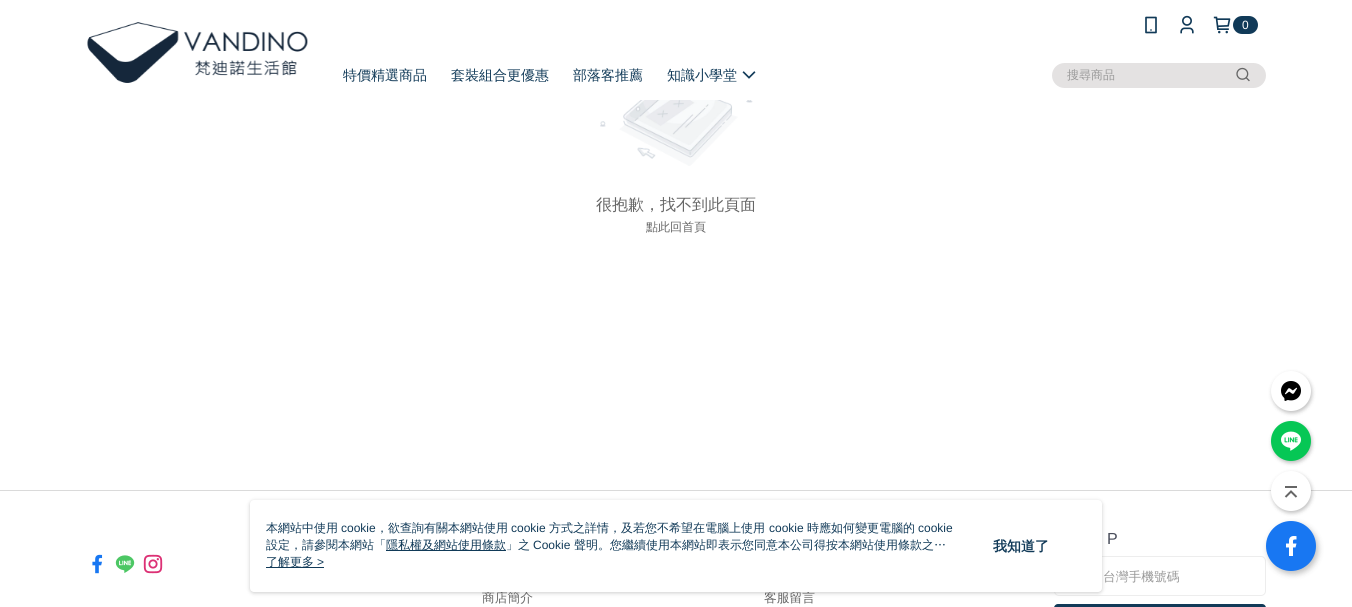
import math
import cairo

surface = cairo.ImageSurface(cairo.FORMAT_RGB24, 1352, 607)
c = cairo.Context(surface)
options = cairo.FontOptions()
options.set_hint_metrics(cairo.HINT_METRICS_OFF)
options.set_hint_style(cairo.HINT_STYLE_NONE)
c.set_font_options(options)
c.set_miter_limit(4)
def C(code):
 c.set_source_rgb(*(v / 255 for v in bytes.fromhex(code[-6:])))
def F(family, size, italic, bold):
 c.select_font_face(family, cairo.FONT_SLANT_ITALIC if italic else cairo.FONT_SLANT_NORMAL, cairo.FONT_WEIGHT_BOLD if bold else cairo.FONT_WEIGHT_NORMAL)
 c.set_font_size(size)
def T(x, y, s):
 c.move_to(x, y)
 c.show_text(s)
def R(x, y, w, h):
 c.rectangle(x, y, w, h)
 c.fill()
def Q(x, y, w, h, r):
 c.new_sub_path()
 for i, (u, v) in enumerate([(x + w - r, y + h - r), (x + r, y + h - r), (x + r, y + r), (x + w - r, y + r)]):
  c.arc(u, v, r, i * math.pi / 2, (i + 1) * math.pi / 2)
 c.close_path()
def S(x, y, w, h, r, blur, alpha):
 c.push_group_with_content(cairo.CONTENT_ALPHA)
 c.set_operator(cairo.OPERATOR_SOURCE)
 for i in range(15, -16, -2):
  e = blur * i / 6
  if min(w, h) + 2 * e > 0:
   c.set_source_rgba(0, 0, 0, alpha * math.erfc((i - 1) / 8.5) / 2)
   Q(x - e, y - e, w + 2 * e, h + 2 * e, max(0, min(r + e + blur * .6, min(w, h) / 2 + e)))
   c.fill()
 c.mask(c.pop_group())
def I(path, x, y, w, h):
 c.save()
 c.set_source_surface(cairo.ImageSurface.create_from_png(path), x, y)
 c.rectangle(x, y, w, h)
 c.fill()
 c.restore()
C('ffffff')
c.paint()
I('1.png',87,22,221,61)
I('2.png',1145,16,12,18)
I('3.png',1180,15,14,19)
I('4.png',1213,16,18,18)
C('113a58')
Q(1233,16,25,18,9)
c.fill()
F('Liberation Sans',12,0,0)
C('ffffff')
T(1242,29,'0')
F('WenQuanYi Zen Hei Medium',14,0,0)
C('113a58')
T(343,80,'特價精選商品')
T(451,80,'套裝組合更優惠')
T(573,80,'部落客推薦')
T(667,80,'知識小學堂')
I('5.png',742,71,14,8)
C('e4e2e2')
Q(1052,63,214,25,12.5)
c.fill()
F('WenQuanYi Zen Hei Medium',12,0,0)
C('999999')
T(1067,79,'搜尋商品')
I('6.png',1236,67,14,15)
C('000000')
S(1272,373,40,40,20,2,.25)
C('ffffff')
c.arc(1291,391,20,0,2 * math.pi)
c.fill()
I('7.png',1281,381,20,20)
C('000000')
S(1272,423,40,40,20,2,.25)
C('06c755')
c.arc(1291,441,20,0,2 * math.pi)
c.fill()
I('8.png',1281,431,20,20)
C('dadada')
R(0,490,1352,1)
C('000000')
S(1272,473,40,40,20,2,.25)
C('ffffff')
c.arc(1291,491,20,0,2 * math.pi)
c.fill()
I('9.png',1284,486,14,12)
Q(1054.5,556.5,211,39,4.5)
C('ededed')
c.set_line_width(1)
c.stroke()
C('000000')
S(1268,524,50,50,25,3,.25)
C('1877f2')
c.arc(1291,546,25,0,2 * math.pi)
c.fill()
I('10.png',1286,536,11,20)
I('11.png',600,100,153,66)
F('WenQuanYi Zen Hei Medium',16,0,0)
C('666666')
T(596,210,'很抱歉，找不到此頁面')
F('WenQuanYi Zen Hei Medium',12,0,0)
T(646,231,'點此回首頁')
C('979797')
S(250,501,852,92,4,2,.5)
F('WenQuanYi Zen Hei Medium',12.75,0,0)
C('666666')
T(482,602,'商店簡介')
T(764,602,'客服留言')
C('ffffff')
Q(250,500,852,92,4)
c.fill()
F('WenQuanYi Zen Hei Medium',12,0,0)
C('113a58')
T(266,532,'本網站中使用')
F('Liberation Sans',12,0,0)
T(341,532,'cookie')
F('WenQuanYi Zen Hei Medium',12,0,0)
T(376,532,'，欲查詢有關本網站使用')
F('Liberation Sans',12,0,0)
T(511,532,'cookie')
F('WenQuanYi Zen Hei Medium',12,0,0)
T(549,532,'方式之詳情，及若您不希望在電腦上使用')
F('Liberation Sans',12,0,0)
T(769,532,'cookie')
F('WenQuanYi Zen Hei Medium',12,0,0)
T(807,532,'時應如何變更電腦的')
F('Liberation Sans',12,0,0)
T(918,532,'cookie')
F('WenQuanYi Zen Hei Medium',12,0,0)
T(266,549,'設定，請參閱本網站「')
R(386,550,120,1)
T(386,549,'隱私權及網站使用條款」之')
F('Liberation Sans',12,0,0)
T(533,549,'Cookie')
F('WenQuanYi Zen Hei Medium',12,0,0)
T(574,549,'聲明。您繼續使用本網站即表示您同意本公司得按本網站使用條款之…')
R(266,567,58,1)
T(266,566,'了解更多')
F('Liberation Sans',12,0,0)
T(317,566,'>')
F('WenQuanYi Zen Hei',14,0,1)
T(993,551,'我知道了')
I('12.png',92,554,11,20)
I('13.png',115,555,20,18)
I('14.png',143,554,20,20)
F('Liberation Sans',16,0,0)
C('4a4e5c')
T(1107,544,'P')
F('WenQuanYi Zen Hei Medium',12.75,0,0)
C('999999')
T(1103,581,'台灣手機號碼')
C('113a58')
Q(1054,604,212,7,4)
c.fill()
surface.write_to_png('o.png')
